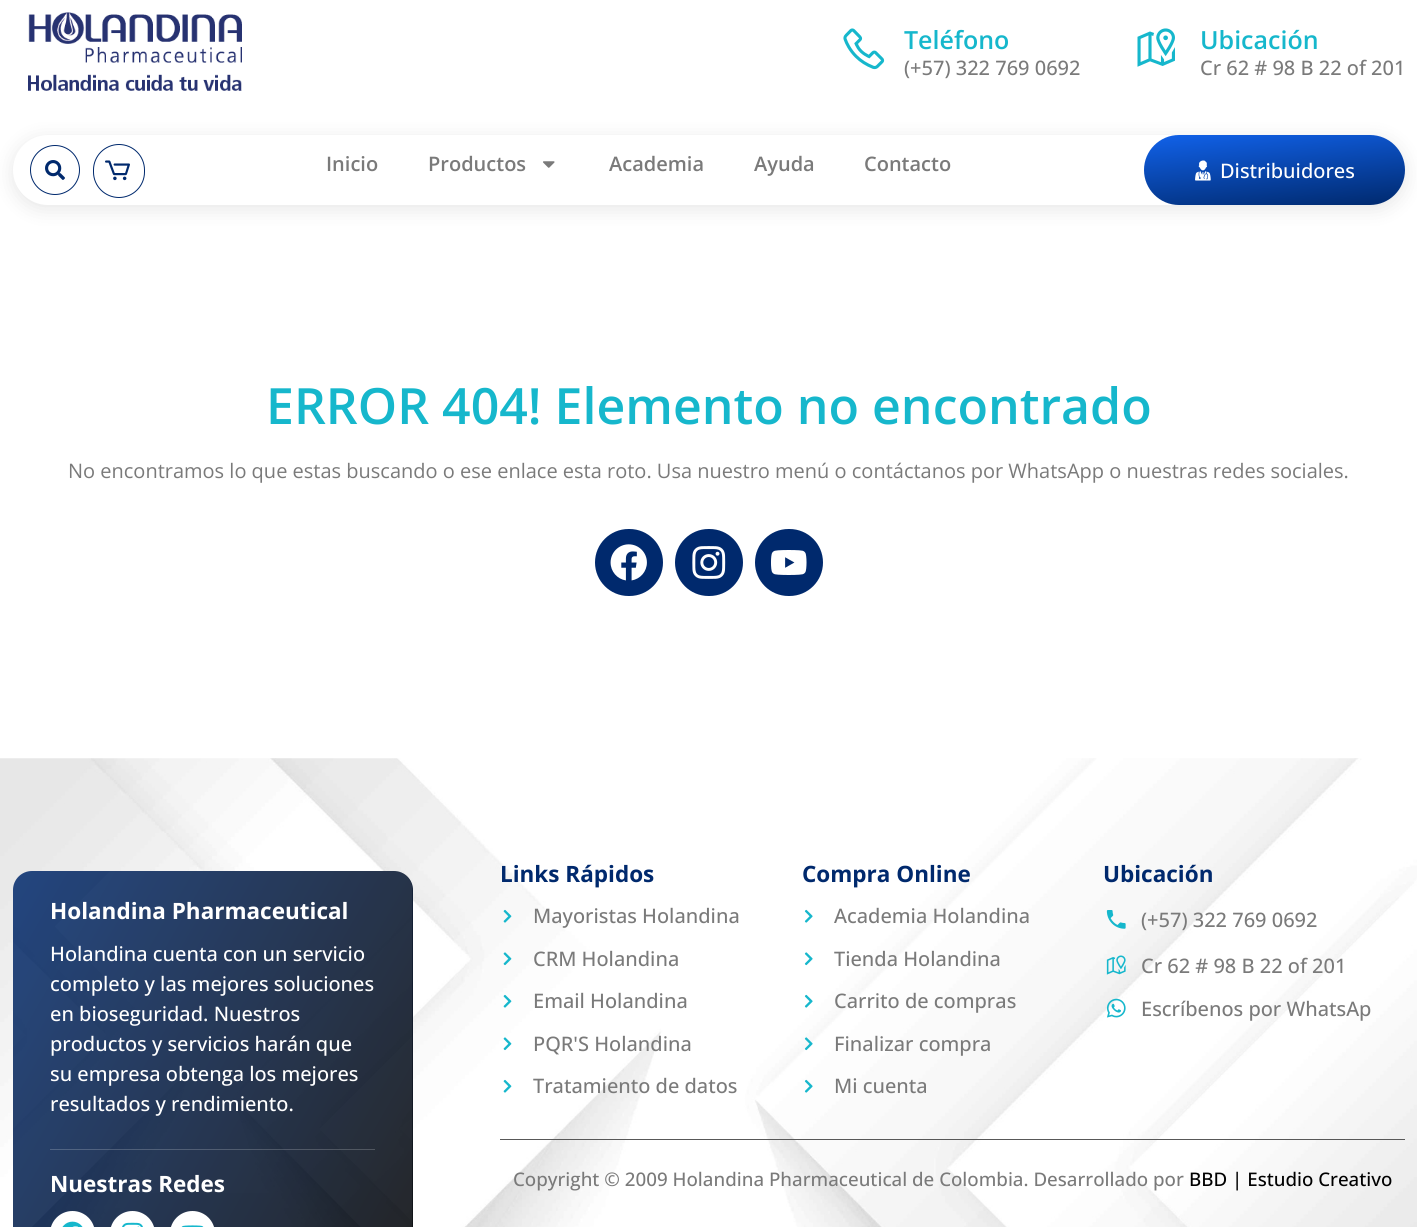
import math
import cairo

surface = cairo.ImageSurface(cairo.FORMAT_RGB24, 1417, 1227)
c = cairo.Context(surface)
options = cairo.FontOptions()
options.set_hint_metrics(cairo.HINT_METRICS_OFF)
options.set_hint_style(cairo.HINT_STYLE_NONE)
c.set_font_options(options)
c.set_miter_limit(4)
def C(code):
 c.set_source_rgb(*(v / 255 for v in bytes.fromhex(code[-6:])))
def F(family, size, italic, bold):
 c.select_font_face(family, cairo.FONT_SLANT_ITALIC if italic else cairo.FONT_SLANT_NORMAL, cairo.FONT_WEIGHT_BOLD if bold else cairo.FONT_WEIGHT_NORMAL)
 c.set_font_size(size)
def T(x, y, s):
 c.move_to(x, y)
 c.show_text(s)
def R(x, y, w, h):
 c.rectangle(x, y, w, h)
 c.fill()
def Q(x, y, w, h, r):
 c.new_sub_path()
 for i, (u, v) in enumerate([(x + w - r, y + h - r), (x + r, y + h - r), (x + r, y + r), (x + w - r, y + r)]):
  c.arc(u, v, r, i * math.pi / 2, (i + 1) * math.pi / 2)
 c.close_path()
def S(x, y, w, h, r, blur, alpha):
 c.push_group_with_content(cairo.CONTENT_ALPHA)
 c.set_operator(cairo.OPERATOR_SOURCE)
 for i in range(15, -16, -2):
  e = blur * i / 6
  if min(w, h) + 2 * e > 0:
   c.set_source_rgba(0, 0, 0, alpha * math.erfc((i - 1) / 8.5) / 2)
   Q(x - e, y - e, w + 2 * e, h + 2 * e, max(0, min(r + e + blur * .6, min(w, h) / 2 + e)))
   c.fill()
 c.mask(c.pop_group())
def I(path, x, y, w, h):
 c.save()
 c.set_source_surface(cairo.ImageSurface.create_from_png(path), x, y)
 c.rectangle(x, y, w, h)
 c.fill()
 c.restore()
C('ffffff')
c.paint()
I('1.png',28,12,214,79)
I('2.png',843,28,42,42)
F('Open Sans SemiBold',25,0,0)
C('16b7cc')
T(904,49,'Teléfono')
F('Open Sans Medium',20,0,0)
C('7a7a7a')
T(904,75,'(+57) 322 769 0692')
I('3.png',1137,28,38,39)
F('Open Sans SemiBold',25,0,0)
C('16b7cc')
T(1200,49,'Ubicación')
F('Open Sans Medium',20,0,0)
C('7a7a7a')
T(1200,75,'Cr 62 # 98 B 22 of 201')
C('000000')
S(13,139,1392,70,35,9.5,.1)
C('ffffff')
Q(13,135,1392,70,35)
c.fill()
c.arc(55,170,24.5,0,2 * math.pi)
C('00296d')
c.set_line_width(1)
c.stroke()
I('4.png',45,160,20,20)
Q(93.5,144.5,51,53,25.5)
c.stroke()
I('5.png',105,160,25,21)
F('Open Sans SemiBold',20,0,0)
C('7a7a7a')
T(326,171,'Inicio')
T(428,171,'Productos')
I('6.png',543,161,12,7)
T(609,171,'Academia')
T(754,171,'Ayuda')
T(864,171,'Contacto')
gradient = cairo.LinearGradient(1269,122,1279,218)
gradient.add_color_stop_rgba(0,0.067,0.384,0.918,1)
gradient.add_color_stop_rgba(1,0,0.161,0.427,1)
c.set_source(gradient)
Q(1144,135,261,70,35)
c.fill()
I('7.png',1195,160,16,21)
F('Open Sans Medium',20,0,0)
C('ffffff')
T(1220,178,'Distribuidores')
F('Open Sans SemiBold',50,0,0)
C('16b7cc')
T(266,424,'ERROR 404! Elemento no encontrado')
F('Open Sans',20,0,0)
C('7a7a7a')
T(68,478,'No encontramos lo que estas buscando o ese enlace esta roto. Usa nuestro menú o contáctanos por WhatsApp o nuestras redes sociales.')
C('00296d')
Q(595,529,68,67,33.5)
c.fill()
I('8.png',610,544,37,37)
Q(675,529,68,67,33.5)
c.fill()
I('9.png',692,546,34,33)
Q(755,529,68,67,33.5)
c.fill()
I('10.png',771,550,36,25)
I('11.png',0,758,1417,469)
gradient = cairo.LinearGradient(454,1222,-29,943)
gradient.add_color_stop_rgba(0,0,0,0,1)
gradient.add_color_stop_rgba(1,0,0.161,0.427,1)
c.set_source(gradient)
Q(13,871,400,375,19)
c.fill()
I('12.png',13,871,400,356)
F('Open Sans',22.5,0,1)
C('ffffff')
T(50,919,'Holandina Pharmaceutical')
F('Open Sans Medium',20,0,0)
T(50,961,'Holandina cuenta con un servicio')
T(50,991,'completo y las mejores soluciones')
T(50,1021,'en bioseguridad. Nuestros')
T(50,1051,'productos y servicios harán que')
T(50,1081,'su empresa obtenga los mejores')
T(50,1111,'resultados y rendimiento.')
c.set_source_rgba(1,1,1,0.2)
R(50,1149,325,1)
F('Open Sans',22.5,0,1)
C('ffffff')
T(50,1192,'Nuestras Redes')
Q(50,1211,45,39,22.5)
c.fill()
I('13.png',62,1221,21,6)
Q(110,1211,45,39,22.5)
c.fill()
I('14.png',122,1222,21,5)
Q(170,1211,45,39,22.5)
c.fill()
I('15.png',181,1225,23,2)
C('00296d')
T(500,882,'Links Rápidos')
I('16.png',503,909,9,14)
F('Open Sans Medium',20,0,0)
C('7a7a7a')
T(533,923,'Mayoristas Holandina')
I('17.png',503,952,9,14)
T(533,966,'CRM Holandina')
I('18.png',503,994,9,14)
T(533,1008,'Email Holandina')
I('19.png',503,1037,9,14)
T(533,1051,'PQR\'S Holandina')
I('20.png',503,1079,9,14)
T(533,1093,'Tratamiento de datos')
F('Open Sans',22.5,0,1)
C('00296d')
T(802,882,'Compra Online')
I('21.png',804,909,9,14)
F('Open Sans Medium',20,0,0)
C('7a7a7a')
T(834,923,'Academia Holandina')
I('22.png',804,952,9,14)
T(834,966,'Tienda Holandina')
I('21.png',804,994,9,14)
T(834,1008,'Carrito de compras')
I('23.png',804,1037,9,14)
T(834,1051,'Finalizar compra')
I('24.png',804,1079,9,14)
T(834,1093,'Mi cuenta')
F('Open Sans',22.5,0,1)
C('00296d')
T(1103,882,'Ubicación')
I('25.png',1106,910,20,19)
F('Open Sans Medium',20,0,0)
C('7a7a7a')
T(1141,927,'(+57) 322 769 0692')
I('26.png',1106,955,20,20)
T(1141,973,'Cr 62 # 98 B 22 of 201')
I('27.png',1106,998,20,20)
T(1141,1016,'Escríbenos por WhatsAp')
C('585858')
R(500,1139,905,1)
F('Open Sans Medium',18.75,0,0)
C('7a7a7a')
T(513,1186,'Copyright © 2009 Holandina Pharmaceutical de Colombia. Desarrollado por')
C('000000')
T(1189,1186,'BBD | Estudio Creativo')
surface.write_to_png('o.png')
